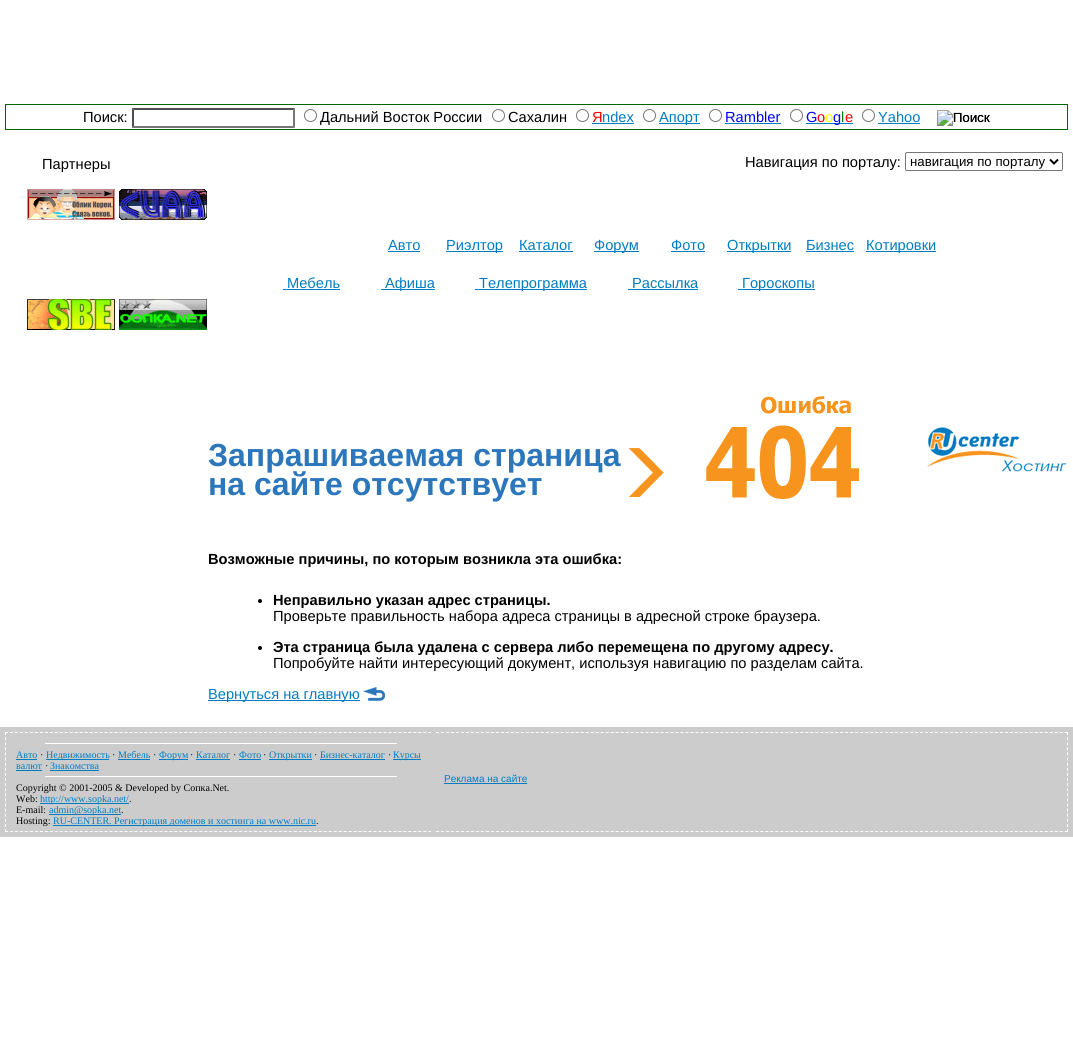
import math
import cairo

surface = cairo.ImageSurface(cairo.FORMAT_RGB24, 1073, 1059)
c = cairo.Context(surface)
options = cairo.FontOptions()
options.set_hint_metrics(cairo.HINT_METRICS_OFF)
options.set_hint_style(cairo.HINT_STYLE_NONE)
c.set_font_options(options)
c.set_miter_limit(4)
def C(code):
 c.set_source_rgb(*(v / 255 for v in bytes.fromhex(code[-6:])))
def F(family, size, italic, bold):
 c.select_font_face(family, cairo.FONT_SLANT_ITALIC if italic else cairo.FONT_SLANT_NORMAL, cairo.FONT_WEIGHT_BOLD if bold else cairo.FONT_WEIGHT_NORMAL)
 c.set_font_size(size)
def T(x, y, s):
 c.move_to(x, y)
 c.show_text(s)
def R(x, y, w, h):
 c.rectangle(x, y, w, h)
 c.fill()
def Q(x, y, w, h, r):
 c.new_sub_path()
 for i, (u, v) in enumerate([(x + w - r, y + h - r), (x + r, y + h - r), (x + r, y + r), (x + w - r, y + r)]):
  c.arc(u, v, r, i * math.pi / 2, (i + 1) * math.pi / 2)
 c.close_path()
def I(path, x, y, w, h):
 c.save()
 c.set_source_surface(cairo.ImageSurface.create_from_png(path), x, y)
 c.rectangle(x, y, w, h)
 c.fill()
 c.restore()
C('ffffff')
c.paint()
c.rectangle(5.5,104.5,1062,25)
C('006600')
c.set_line_width(1)
c.stroke()
F('Liberation Sans',14.65,0,0)
C('000000')
T(83,122,'Поиск:')
C('4f4f4f')
c.new_path()
c.move_to(132,108)
c.line_to(295,108)
c.line_to(293,110)
c.line_to(134,110)
c.close_path()
c.fill()
C('767676')
c.new_path()
c.move_to(295,108)
c.line_to(295,128)
c.line_to(293,126)
c.line_to(293,110)
c.close_path()
c.fill()
c.new_path()
c.move_to(295,128)
c.line_to(132,128)
c.line_to(134,126)
c.line_to(293,126)
c.close_path()
c.fill()
C('4f4f4f')
c.new_path()
c.move_to(132,128)
c.line_to(132,108)
c.line_to(134,110)
c.line_to(134,126)
c.close_path()
c.fill()
c.arc(310.5,115.5,6,0,2 * math.pi)
C('767676')
c.stroke()
C('000000')
T(320,122,'Дальний Восток России')
c.new_path()
c.arc(498.5,115.5,6,0,2 * math.pi)
C('767676')
c.stroke()
C('000000')
T(508,122,'Сахалин')
c.new_path()
c.arc(582.5,115.5,6,0,2 * math.pi)
C('767676')
c.stroke()
C('ff0000')
T(592,122,'Я')
C('007dc2')
T(602,122,'ndex')
R(592,123,42,1)
c.new_path()
c.arc(649.5,115.5,6,0,2 * math.pi)
C('767676')
c.stroke()
C('007dc2')
R(659,123,41,1)
T(659,122,'Апорт')
c.new_path()
c.arc(715.5,115.5,6,0,2 * math.pi)
C('767676')
c.stroke()
C('0000ff')
T(725,122,'Rambler')
C('007dc2')
R(725,123,56,1)
c.new_path()
c.arc(796.5,115.5,6,0,2 * math.pi)
C('767676')
c.stroke()
C('0000ff')
T(806,122,'G')
C('ff0000')
T(817,122,'o')
C('ffff00')
T(825,122,'o')
C('007dc2')
R(806,123,47,1)
C('0000ff')
T(833,122,'g')
C('008000')
T(841,122,'l')
C('ff0000')
T(845,122,'e')
c.new_path()
c.arc(868.5,115.5,6,0,2 * math.pi)
C('767676')
c.stroke()
C('007dc2')
T(878,122,'Yahoo')
R(878,123,42,1)
I('1.png',937,110,53,16)
F('Liberation Sans',13.25,0,0)
C('000000')
T(953,122,'Поиск')
F('Liberation Sans',14.65,0,0)
T(42,169,'Партнеры')
I('2.png',27,189,88,31)
I('3.png',119,189,88,31)
I('4.png',27,299,88,31)
I('5.png',119,299,88,31)
T(745,167,'Навигация по порталу:')
Q(905.5,152.5,157,18,1.5)
C('767676')
c.stroke()
c.new_path()
c.move_to(1050,159.5)
c.line_to(1054,163.5)
c.line_to(1058,159.5)
C('000000')
c.set_line_width(2)
c.stroke()
F('Liberation Sans',13.25,0,0)
T(910,166,'навигация по порталу')
F('Liberation Sans',14.65,0,0)
C('007dc2')
T(388,250,'Авто')
R(388,251,32,1)
R(446,251,57,1)
T(446,250,'Риэлтор')
T(519,250,'Каталог')
R(519,251,54,1)
R(594,251,45,1)
T(594,250,'Форум')
T(671,250,'Фото')
R(671,251,34,1)
R(727,251,64,1)
T(727,250,'Открытки')
T(806,250,'Бизнес')
R(806,251,48,1)
R(866,251,70,1)
T(866,250,'Котировки')
T(287,288,'Мебель')
R(283,289,57,1)
R(381,289,54,1)
T(385,288,'Афиша')
R(475,289,112,1)
T(479,288,'Телепрограмма')
T(632,288,'Рассылка')
R(628,289,70,1)
R(738,289,77,1)
T(742,288,'Гороскопы')
I('6.png',927,427,140,45)
F('Liberation Sans',32,0,1)
C('2c77bc')
T(208,466,'Запрашиваемая страница')
T(208,495,'на сайте отсутствует')
I('7.png',628,396,231,103)
F('Liberation Sans',14.65,0,1)
C('000000')
T(208,564,'Возможные причины, по которым возникла эта ошибка:')
c.new_path()
c.arc(260,601,2,0,2 * math.pi)
c.fill()
T(273,605,'Неправильно указан адрес страницы.')
F('Liberation Sans',14.65,0,0)
T(273,621,'Проверьте правильность набора адреса страницы в адресной строке браузера.')
c.new_path()
c.arc(260,648,2,0,2 * math.pi)
c.fill()
F('Liberation Sans',14.65,0,1)
T(273,652,'Эта страница была удалена с сервера либо перемещена по другому адресу.')
F('Liberation Sans',14.65,0,0)
T(273,668,'Попробуйте найти интересующий документ, используя навигацию по разделам сайта.')
C('007dc2')
R(208,700,152,1)
T(208,699,'Вернуться на главную')
I('8.png',363,687,22,14)
C('cccccc')
R(0,727,1073,110)
c.new_path()
c.move_to(5,732.5)
c.line_to(431,732.5)
C('ffffff')
c.set_line_width(1)
c.set_dash([3,1.98])
c.stroke()
c.new_path()
c.move_to(5,831.5)
c.line_to(431,831.5)
c.stroke()
c.new_path()
c.move_to(5.5,732)
c.line_to(5.5,832)
c.set_dash([3,2.11])
c.stroke()
R(45,743,352,1)
F('Liberation Serif',10,0,0)
C('007dc2')
T(16,758,'Авто')
R(16,759,21,1)
C('000000')
T(40,758,'·')
C('007dc2')
R(46,759,63,1)
T(46,758,'Недвижимость')
C('000000')
T(112,758,'·')
C('007dc2')
T(118,758,'Мебель')
R(118,759,32,1)
C('000000')
T(153,758,'·')
C('007dc2')
R(159,759,29,1)
T(159,758,'Форум')
C('000000')
T(190,758,'·')
C('007dc2')
T(196,758,'Каталог')
R(196,759,34,1)
C('000000')
T(233,758,'·')
C('007dc2')
T(239,758,'Фото')
R(239,759,22,1)
C('000000')
T(263,758,'·')
C('007dc2')
R(269,759,43,1)
T(269,758,'Открытки')
C('000000')
T(314,758,'·')
C('007dc2')
T(320,758,'Бизнес-каталог')
R(320,759,65,1)
C('000000')
T(388,758,'·')
C('007dc2')
R(393,759,28,1)
T(393,758,'Курсы')
T(16,769,'валют')
R(16,770,26,1)
C('000000')
T(45,769,'·')
C('007dc2')
T(50,769,'Знакомства')
R(50,770,49,1)
C('ffffff')
R(45,776,352,1)
C('000000')
T(16,791,'Copyright © 2001-2005 & Developed by Сопка.Net.')
T(16,802,'Web:')
C('007dc2')
R(40,803,89,1)
T(40,802,'http://www.sopka.net/')
C('000000')
T(129,802,'.')
T(16,813,'E-mail:')
C('007dc2')
R(49,814,72,1)
T(49,813,'admin@sopka.net')
C('000000')
T(121,813,'.')
T(16,824,'Hosting:')
C('007dc2')
R(53,825,263,1)
T(53,824,'RU-CENTER. Регистрация доменов и хостинга на www.nic.ru')
C('000000')
T(316,824,'.')
c.new_path()
c.move_to(436,732.5)
c.line_to(1068,732.5)
C('ffffff')
c.set_dash([3,1.99])
c.stroke()
c.new_path()
c.move_to(1067.5,732)
c.line_to(1067.5,832)
c.set_dash([3,2.11])
c.stroke()
c.new_path()
c.move_to(436,831.5)
c.line_to(1068,831.5)
c.set_dash([3,1.99])
c.stroke()
F('Liberation Sans',10,0,0)
C('007dc2')
T(444,782,'Реклама на сайте')
R(444,783,83,1)
surface.write_to_png('o.png')
